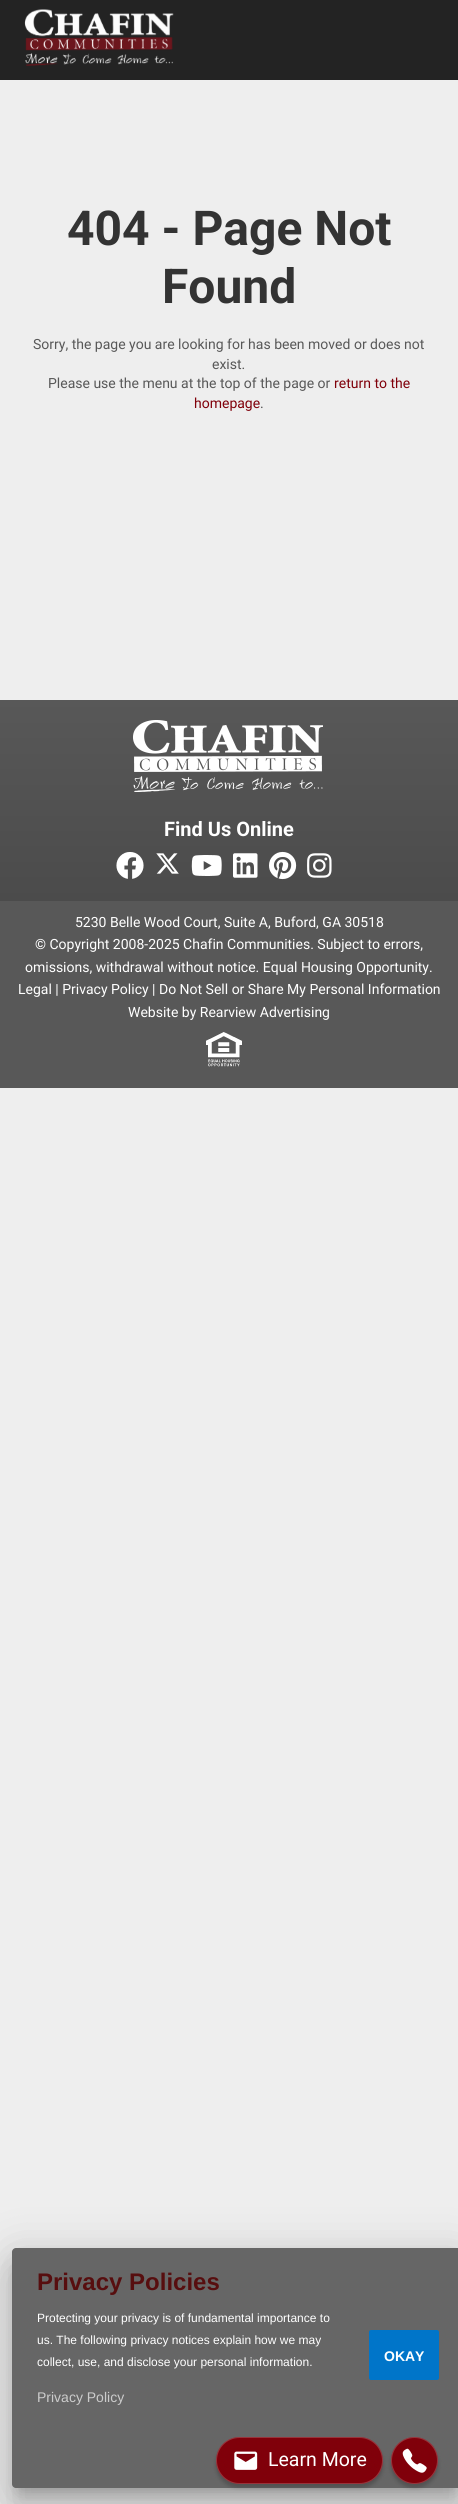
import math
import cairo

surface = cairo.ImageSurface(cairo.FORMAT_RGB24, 458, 2504)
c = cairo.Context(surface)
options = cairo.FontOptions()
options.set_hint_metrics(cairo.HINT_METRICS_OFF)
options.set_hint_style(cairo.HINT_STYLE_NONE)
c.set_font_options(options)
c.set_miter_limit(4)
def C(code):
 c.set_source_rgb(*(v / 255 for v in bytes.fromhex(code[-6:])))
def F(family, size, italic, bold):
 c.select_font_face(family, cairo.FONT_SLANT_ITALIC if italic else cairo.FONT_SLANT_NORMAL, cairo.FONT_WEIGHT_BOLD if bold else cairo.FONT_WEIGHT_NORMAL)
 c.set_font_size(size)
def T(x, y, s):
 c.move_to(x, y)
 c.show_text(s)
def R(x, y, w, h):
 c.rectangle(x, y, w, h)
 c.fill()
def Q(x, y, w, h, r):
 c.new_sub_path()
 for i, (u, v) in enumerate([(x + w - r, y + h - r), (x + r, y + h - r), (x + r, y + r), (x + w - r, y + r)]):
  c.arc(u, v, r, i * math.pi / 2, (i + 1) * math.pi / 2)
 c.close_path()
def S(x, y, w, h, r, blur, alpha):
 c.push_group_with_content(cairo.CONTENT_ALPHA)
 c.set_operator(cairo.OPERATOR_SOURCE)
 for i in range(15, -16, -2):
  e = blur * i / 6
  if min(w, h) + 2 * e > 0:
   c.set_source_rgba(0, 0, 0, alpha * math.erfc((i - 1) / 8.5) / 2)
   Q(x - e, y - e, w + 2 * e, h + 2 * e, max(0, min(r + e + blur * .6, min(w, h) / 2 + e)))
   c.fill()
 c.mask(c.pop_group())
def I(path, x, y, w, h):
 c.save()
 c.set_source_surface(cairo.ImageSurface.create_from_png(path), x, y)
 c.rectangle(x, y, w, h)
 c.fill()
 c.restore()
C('eeeeee')
c.paint()
C('232323')
R(0,0,458,80)
I('1.png',24,9,150,57)
F('Roboto',48,0,1)
C('333333')
T(67,245,'404 - Page Not')
T(162,303,'Found')
F('Roboto',14,0,0)
C('585858')
T(33,349,'Sorry, the page you are looking for has been moved or does not')
T(212,369,'exist.')
T(48,388,'Please use the menu at the top of the page or')
C('80000a')
T(334,388,'return to the')
T(194,408,'homepage')
C('585858')
T(260,408,'.')
R(0,901,458,187)
gradient = cairo.LinearGradient(229,700,229,901)
gradient.add_color_stop_rgba(0,0.345,0.345,0.345,1)
gradient.add_color_stop_rgba(1,0.294,0.294,0.294,1)
c.set_source(gradient)
R(0,700,458,201)
I('2.png',133,720,190,72)
F('Roboto',20,0,1)
C('ffffff')
T(164,836,'Find Us Online')
I('3.png',116,852,28,27)
I('4.png',156,853,23,21)
I('5.png',191,855,31,21)
I('6.png',233,853,25,25)
I('7.png',269,851,28,29)
I('8.png',307,853,25,25)
F('Roboto',14,0,0)
T(75,927,'5230 Belle Wood Court, Suite A, Buford, GA 30518')
T(35,949,'© Copyright 2008-2025 Chafin Communities. Subject to errors,')
T(25,972,'omissions, withdrawal without notice. Equal Housing Opportunity.')
T(18,994,'Legal | Privacy Policy | Do Not Sell or Share My Personal Information')
T(128,1017,'Website by Rearview Advertising')
I('9.png',206,1032,36,35)
C('000000')
S(9,2269,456,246,7,19,.14)
S(4,2249,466,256,12,23,.12)
S(19,2266,436,226,0,7.5,.2)
C('666666')
Q(12,2248,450,240,4)
c.fill()
F('Liberation Sans',24,0,1)
C('570e0f')
T(37,2290,'Privacy Policies')
F('Liberation Sans',12,0,0)
C('ffffff')
T(37,2322,'Protecting your privacy is of fundamental importance to')
T(37,2344,'us. The following privacy notices explain how we may')
T(37,2366,'collect, use, and disclose your personal information.')
C('0075c9')
Q(369,2330,70,50,2)
c.fill()
F('Liberation Sans',14,0,1)
C('ffffff')
T(384,2361,'OKAY')
F('Liberation Sans',14,0,0)
C('cccccc')
T(37,2402,'Privacy Policy')
C('000000')
S(216,2441,167,47,23.5,2,.2)
C('80000a')
Q(216,2437,167,47,23.5)
c.fill()
Q(216.5,2437.5,166,46,23)
c.set_source_rgba(1,1,1,0.2)
c.set_line_width(1)
c.stroke()
I('10.png',234,2451,24,19)
F('Roboto',19.5,0,0)
C('ffffff')
T(268,2466,'Learn More')
C('000000')
S(391,2441,47,47,23.5,2,.2)
C('80000a')
c.arc(414.5,2460.5,23.5,0,2 * math.pi)
c.fill()
c.arc(414.5,2460.5,23,0,2 * math.pi)
c.set_source_rgba(1,1,1,0.2)
c.stroke()
I('11.png',402,2448,25,25)
surface.write_to_png('o.png')
